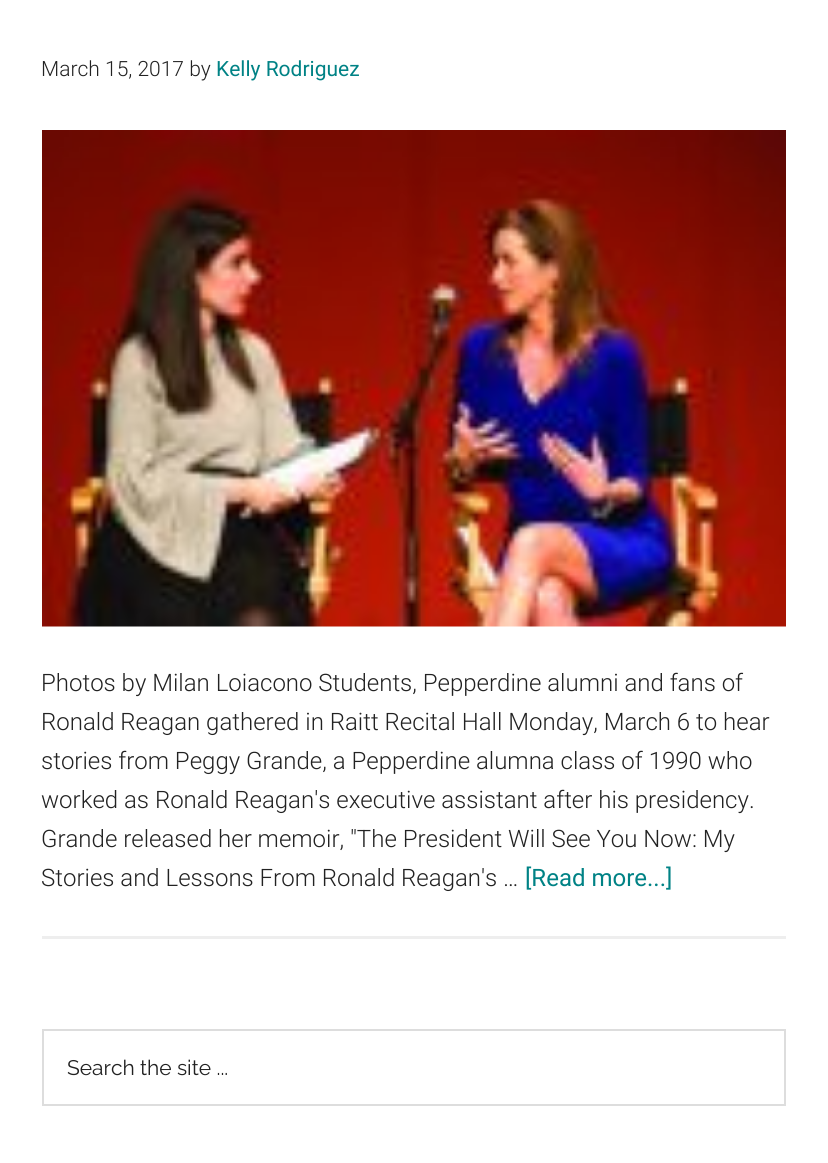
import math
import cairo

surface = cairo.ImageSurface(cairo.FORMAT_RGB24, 828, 1163)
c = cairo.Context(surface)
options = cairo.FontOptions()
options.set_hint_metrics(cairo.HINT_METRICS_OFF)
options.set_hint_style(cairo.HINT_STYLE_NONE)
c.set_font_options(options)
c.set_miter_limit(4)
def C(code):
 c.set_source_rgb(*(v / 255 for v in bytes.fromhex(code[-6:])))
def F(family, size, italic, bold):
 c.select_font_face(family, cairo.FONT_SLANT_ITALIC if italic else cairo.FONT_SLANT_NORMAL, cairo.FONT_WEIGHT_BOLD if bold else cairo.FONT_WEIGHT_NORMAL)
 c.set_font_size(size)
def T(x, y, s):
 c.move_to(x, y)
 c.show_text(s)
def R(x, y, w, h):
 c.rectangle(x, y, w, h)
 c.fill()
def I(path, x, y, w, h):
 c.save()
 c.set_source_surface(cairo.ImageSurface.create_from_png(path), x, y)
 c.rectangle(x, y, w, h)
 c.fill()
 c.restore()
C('ffffff')
c.paint()
C('eeeeee')
R(42,936,744,3)
F('Roboto Light',21,0,0)
C('222222')
T(41,76,'March 15, 2017 by')
F('Roboto',21,0,0)
C('008285')
T(216,76,'Kelly Rodriguez')
I('1.png',42,130,744,497)
F('Roboto Light',24,0,0)
C('222222')
T(41,691,'Photos by Milan Loiacono Students, Pepperdine alumni and fans of')
T(41,730,'Ronald Reagan gathered in Raitt Recital Hall Monday, March 6 to hear')
T(41,769,'stories from Peggy Grande, a Pepperdine alumna class of 1990 who')
T(41,808,'worked as Ronald Reagan\'s executive assistant after his presidency.')
T(41,847,'Grande released her memoir, "The President Will See You Now: My')
T(41,886,'Stories and Lessons From Ronald Reagan\'s …')
F('Roboto',24,0,0)
C('008285')
T(525,886,'[Read more...]')
c.rectangle(43,1030,742,75)
C('dddddd')
c.stroke()
F('Raleway',21,0,0)
C('222222')
T(67,1075,'Search the site ...')
surface.write_to_png('o.png')
